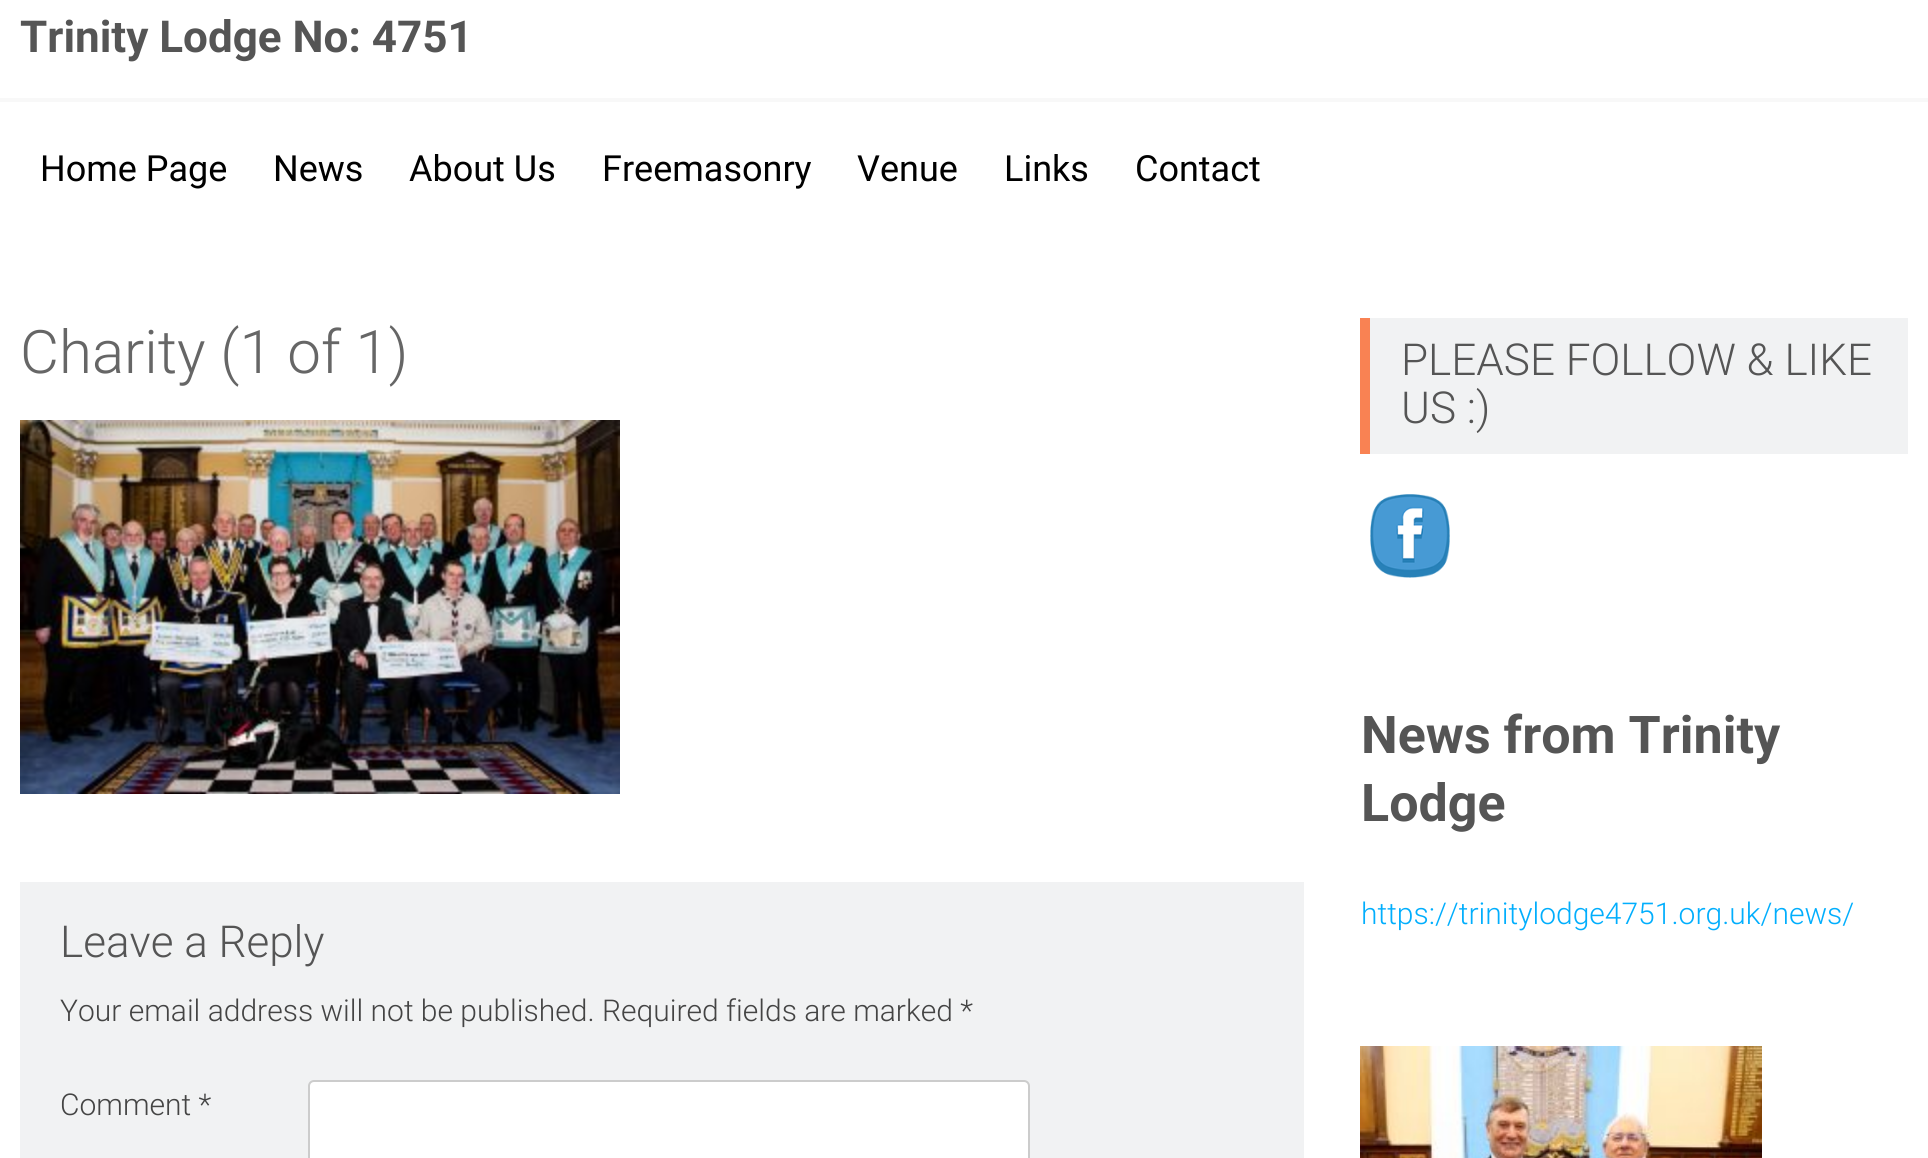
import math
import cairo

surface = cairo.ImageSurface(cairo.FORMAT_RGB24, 1928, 1158)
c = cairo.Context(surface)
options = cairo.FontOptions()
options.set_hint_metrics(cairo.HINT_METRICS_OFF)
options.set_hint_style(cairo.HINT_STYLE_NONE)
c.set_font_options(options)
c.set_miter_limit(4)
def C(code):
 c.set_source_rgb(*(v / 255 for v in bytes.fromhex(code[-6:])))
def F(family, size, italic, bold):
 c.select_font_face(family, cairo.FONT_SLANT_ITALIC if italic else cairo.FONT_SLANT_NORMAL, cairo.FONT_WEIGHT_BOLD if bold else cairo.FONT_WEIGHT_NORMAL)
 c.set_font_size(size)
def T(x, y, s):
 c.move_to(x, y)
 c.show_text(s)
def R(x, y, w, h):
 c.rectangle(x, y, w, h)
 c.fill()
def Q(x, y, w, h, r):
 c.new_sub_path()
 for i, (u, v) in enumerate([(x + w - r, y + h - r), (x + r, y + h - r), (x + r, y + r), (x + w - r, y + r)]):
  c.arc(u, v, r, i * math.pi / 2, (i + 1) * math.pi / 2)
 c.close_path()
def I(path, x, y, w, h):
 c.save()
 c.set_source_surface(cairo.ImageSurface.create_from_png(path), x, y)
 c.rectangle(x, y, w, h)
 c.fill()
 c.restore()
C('ffffff')
c.paint()
F('Roboto',44,0,1)
C('555555')
T(20,52,'Trinity Lodge No: 4751')
C('f8f8f8')
R(0,98,1928,4)
F('Roboto',36,0,0)
C('000000')
T(40,181,'Home Page')
T(273,181,'News')
T(409,181,'About Us')
T(602,181,'Freemasonry')
T(857,181,'Venue')
T(1004,181,'Links')
T(1135,181,'Contact')
F('Roboto Light',60,0,0)
C('666666')
T(20,373,'Charity (1 of 1)')
I('1.png',20,420,600,374)
C('f1f2f3')
R(20,882,1284,276)
F('Roboto Light',44,0,0)
C('555555')
T(60,957,'Leave a Reply')
F('Roboto Light',30,0,0)
C('444444')
T(60,1021,'Your email address will not be published. Required fields are marked *')
T(60,1115,'Comment *')
C('ffffff')
Q(309,1081,720,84,5)
c.fill_preserve()
C('cccccc')
c.stroke()
C('f1f2f3')
R(1370,318,538,136)
C('f98253')
R(1360,318,10,136)
F('Roboto Light',44,0,0)
C('555555')
T(1401,375,'PLEASE FOLLOW & LIKE')
T(1401,423,'US :)')
I('2.png',1370,494,80,84)
F('Roboto',52,0,1)
T(1361,753,'News from Trinity')
T(1361,821,'Lodge')
F('Roboto Light',30,0,0)
C('01aefd')
T(1361,924,'https://trinitylodge4751.org.uk/news/')
I('3.png',1360,1046,402,112)
surface.write_to_png('o.png')
